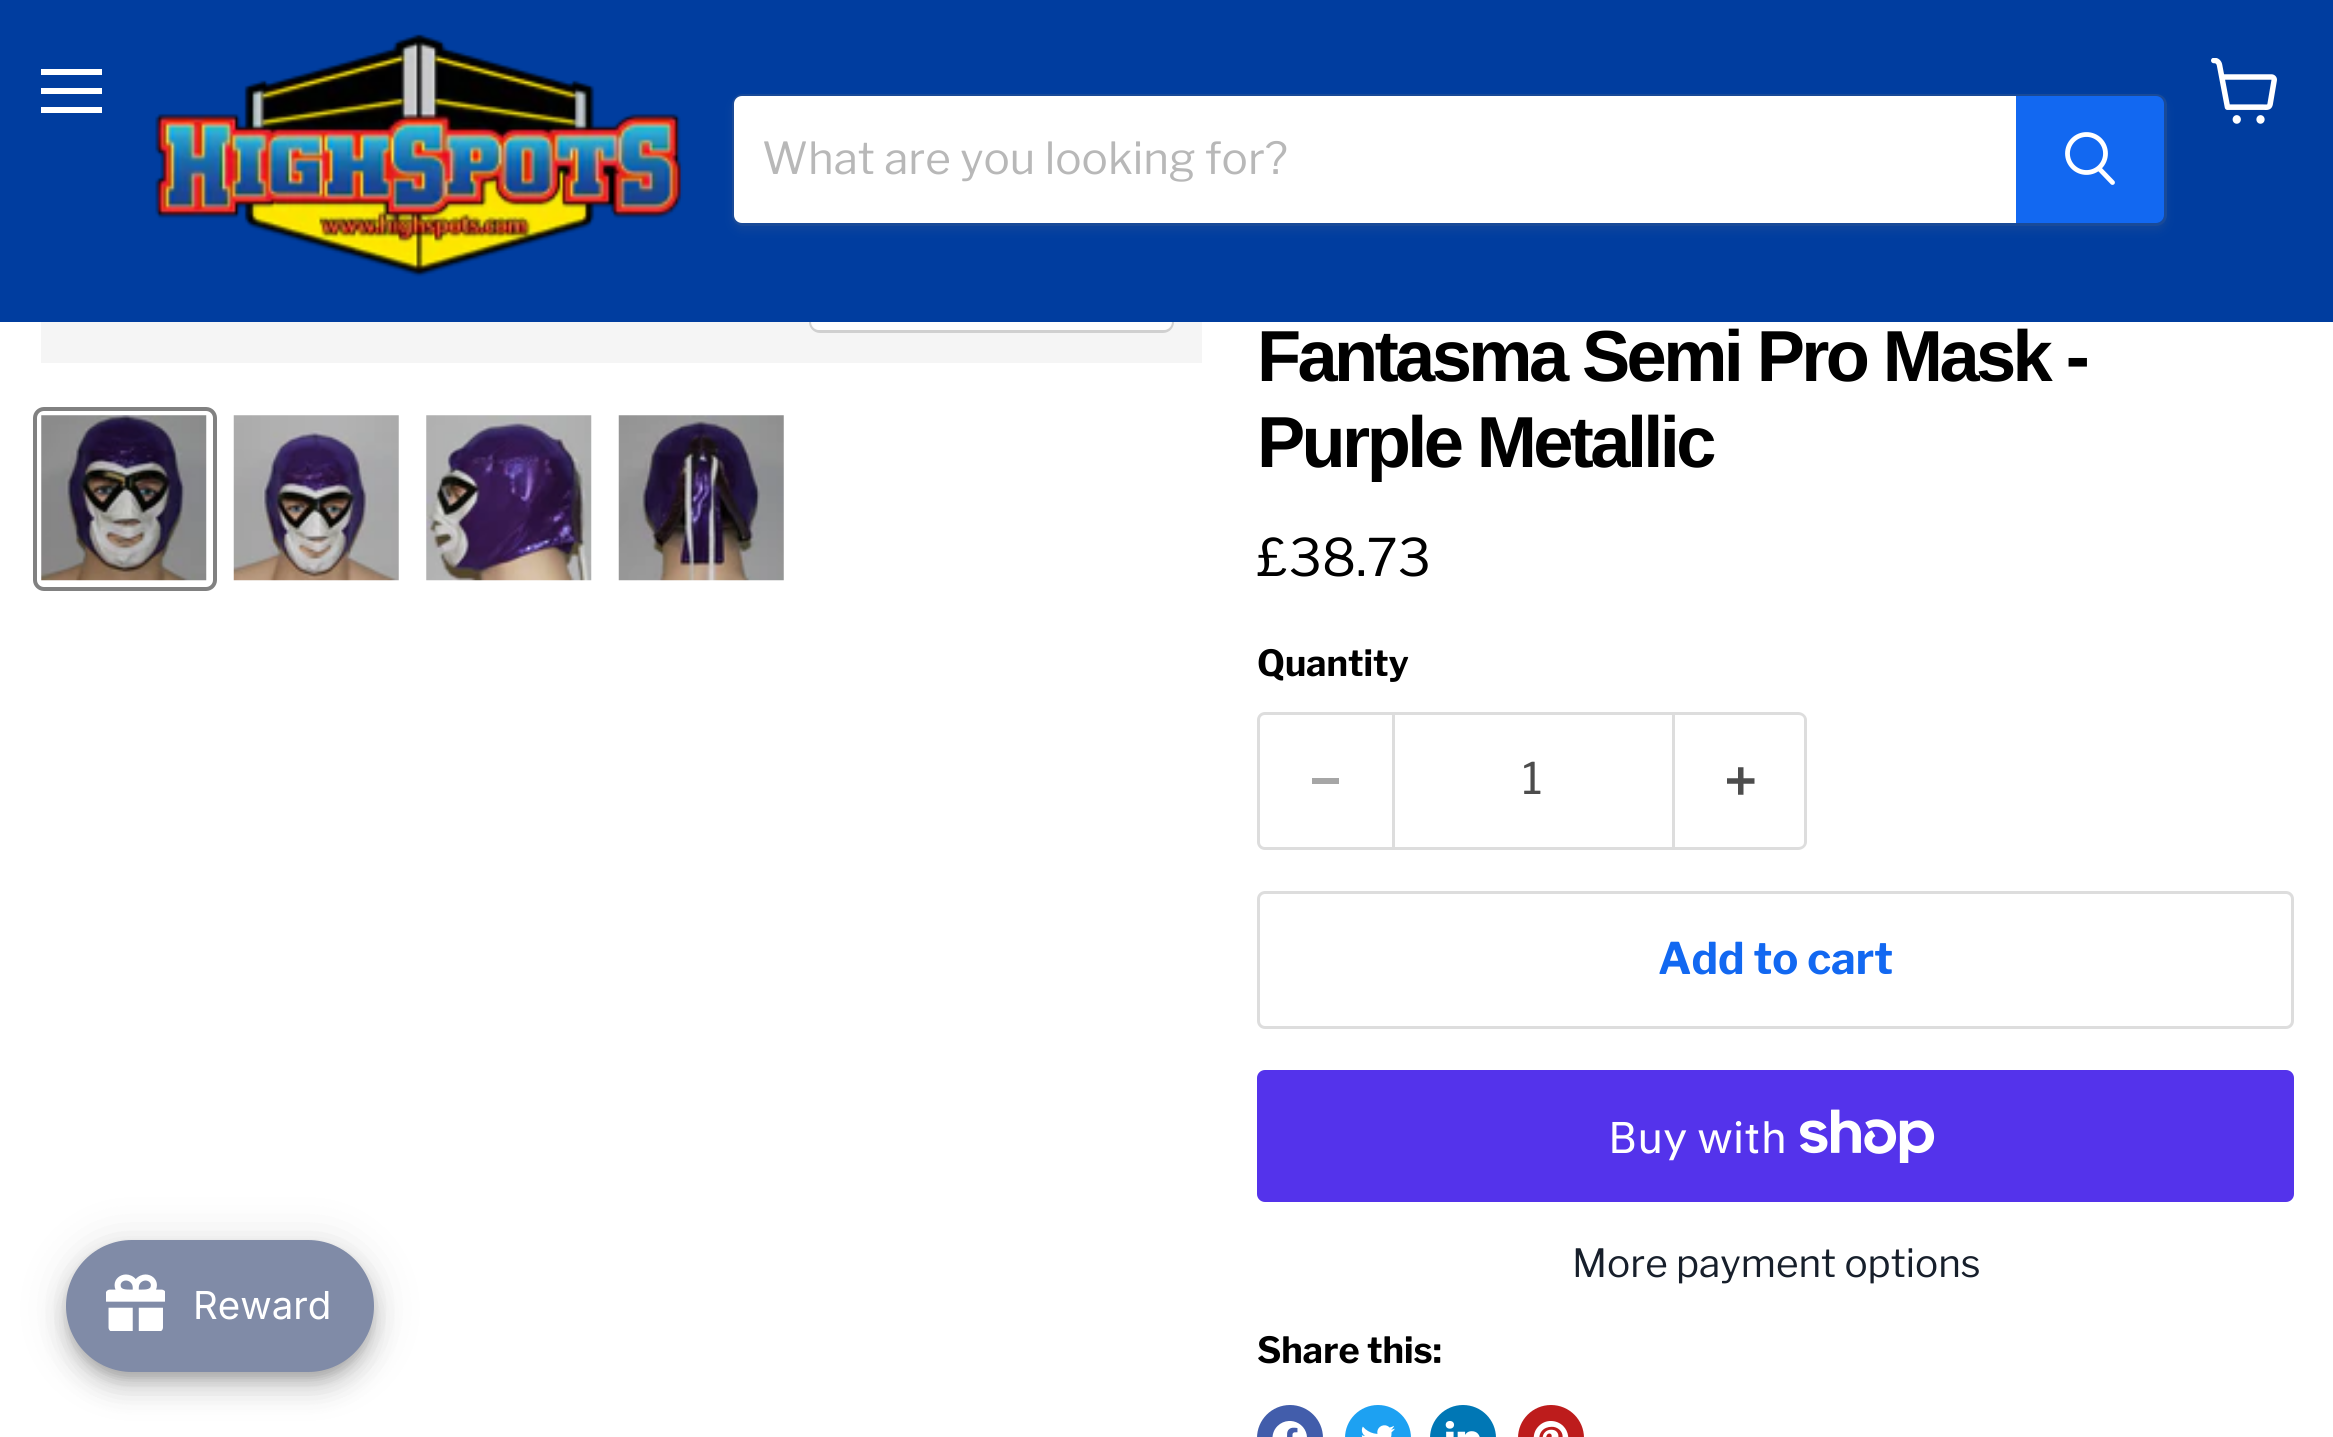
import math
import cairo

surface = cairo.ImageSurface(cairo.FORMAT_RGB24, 2333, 1437)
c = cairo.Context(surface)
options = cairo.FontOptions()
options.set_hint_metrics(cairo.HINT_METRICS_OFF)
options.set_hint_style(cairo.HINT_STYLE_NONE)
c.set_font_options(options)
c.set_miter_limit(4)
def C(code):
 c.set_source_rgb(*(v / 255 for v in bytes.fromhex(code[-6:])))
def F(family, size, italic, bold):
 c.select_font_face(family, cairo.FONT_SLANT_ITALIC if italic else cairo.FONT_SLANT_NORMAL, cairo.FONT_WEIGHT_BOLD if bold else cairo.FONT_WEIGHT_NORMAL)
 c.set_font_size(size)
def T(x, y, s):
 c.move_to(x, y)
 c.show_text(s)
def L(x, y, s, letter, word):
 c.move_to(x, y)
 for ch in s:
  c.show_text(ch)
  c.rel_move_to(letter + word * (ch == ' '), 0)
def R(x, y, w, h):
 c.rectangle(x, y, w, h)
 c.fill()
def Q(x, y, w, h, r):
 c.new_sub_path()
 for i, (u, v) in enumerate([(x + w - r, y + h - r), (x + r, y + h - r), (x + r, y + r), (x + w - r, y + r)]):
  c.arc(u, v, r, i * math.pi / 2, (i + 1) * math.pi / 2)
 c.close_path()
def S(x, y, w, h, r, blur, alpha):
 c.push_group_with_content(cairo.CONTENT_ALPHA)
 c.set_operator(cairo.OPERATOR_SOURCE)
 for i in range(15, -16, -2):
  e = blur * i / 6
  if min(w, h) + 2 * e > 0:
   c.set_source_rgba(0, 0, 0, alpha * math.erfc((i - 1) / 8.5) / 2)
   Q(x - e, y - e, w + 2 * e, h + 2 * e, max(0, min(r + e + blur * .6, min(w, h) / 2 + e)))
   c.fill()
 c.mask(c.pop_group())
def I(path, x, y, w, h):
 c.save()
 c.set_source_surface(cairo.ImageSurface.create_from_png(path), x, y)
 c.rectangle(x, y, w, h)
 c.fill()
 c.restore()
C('ffffff')
c.paint()
C('f5f5f5')
R(41,322,1161,41)
Q(810.5,254.5,362,77,9.5)
C('d0d0d0')
c.set_line_width(3)
c.stroke()
c.set_source_rgba(1,1,1,0.9)
c.new_path()
c.move_to(811,314)
c.line_to(1172,314)
c.line_to(1172,322)
c.curve_to(1172,326.5,1168.5,330,1164,330)
c.line_to(819,330)
c.curve_to(814.5,330,811,326.5,811,322)
c.close_path()
c.fill()
C('003d9f')
R(0,0,2333,322)
C('ffffff')
R(41,69,61,6)
R(41,88,61,6)
R(41,107,61,6)
I('1.png',2211,58,66,66)
I('2.png',155,34,528,243)
c.save()
c.set_fill_rule(cairo.FILL_RULE_EVEN_ODD)
c.new_path()
c.move_to(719,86)
c.line_to(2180,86)
c.line_to(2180,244)
c.line_to(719,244)
c.close_path()
c.move_to(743,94)
c.line_to(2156,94)
c.curve_to(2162,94,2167,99,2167,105)
c.line_to(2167,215)
c.curve_to(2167,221,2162,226,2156,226)
c.line_to(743,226)
c.curve_to(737,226,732,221,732,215)
c.line_to(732,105)
c.curve_to(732,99,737,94,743,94)
c.close_path()
c.clip()
C('808080')
S(732,99,1435,132,11,4,.11)
c.restore()
Q(733.5,95.5,1432,129,9.5)
c.set_source_rgba(0.502,0.502,0.502,0.2)
c.stroke()
C('ffffff')
c.new_path()
c.move_to(742,96)
c.line_to(2016,96)
c.line_to(2016,223)
c.line_to(742,223)
c.curve_to(737.5,223,734,219.5,734,215)
c.line_to(734,104)
c.curve_to(734,99.5,737.5,96,742,96)
c.close_path()
c.fill()
F('Libre Franklin',44,0,0)
C('b8b8b8')
T(762,174,'What are you looking for?')
C('1268f1')
c.new_path()
c.move_to(2017.5,97.5)
c.line_to(2156,97.5)
c.curve_to(2159.5,97.5,2162.5,100.5,2162.5,104)
c.line_to(2162.5,215)
c.curve_to(2162.5,218.5,2159.5,221.5,2156,221.5)
c.line_to(2017.5,221.5)
c.close_path()
c.fill_preserve()
c.stroke()
c.new_path()
c.move_to(2112.5,182.5)
c.line_to(2099.5,169)
C('ffffff')
c.set_line_width(4.8)
c.set_line_cap(cairo.LINE_CAP_ROUND)
c.stroke()
c.arc(2086.5,153.5,19,0,2 * math.pi)
c.set_line_cap(cairo.LINE_CAP_BUTT)
c.stroke()
C('000000')
S(66,1243,308,132,66,25,.12)
S(66,1257,308,132,66,14,.14)
S(69,1251,302,127,63.5,7,.2)
C('808ba7')
Q(66,1240,308,132,66)
c.fill()
I('3.png',106,1274,59,57)
F('Inter',38.5,0,0)
C('ffffff')
T(193,1319,'Reward')
Q(35,409,180,180,9)
C('818181')
c.set_line_width(4)
c.stroke()
I('4.png',41,415,166,166)
I('5.png',233,415,166,166)
I('6.png',426,415,166,166)
I('7.png',618,415,166,166)
F('Arimo',72.25,0,1)
C('000000')
L(1257,381,'Fantasma Semi Pro Mask -',-3.6,0)
L(1257,467,'Purple Metallic',-3.6,0)
F('Libre Franklin',51.5,0,0)
T(1257,576,'£38.73')
F('Libre Franklin',36,0,1)
T(1257,676,'Quantity')
C('dddddd')
c.set_fill_rule(cairo.FILL_RULE_EVEN_ODD)
c.new_path()
c.move_to(1265,712)
c.line_to(1392,712)
c.line_to(1392,850)
c.line_to(1265,850)
c.curve_to(1260,850,1257,846,1257,842)
c.line_to(1257,720)
c.curve_to(1257,716,1260,712,1265,712)
c.close_path()
c.move_to(1265,715)
c.line_to(1392,715)
c.line_to(1392,847)
c.line_to(1265,847)
c.curve_to(1262,847,1260,845,1260,842)
c.line_to(1260,720)
c.curve_to(1260,717,1262,715,1265,715)
c.close_path()
c.fill()
C('a6a6a6')
R(1312,778,27,6)
c.rectangle(1393.5,713.5,280,135)
C('dddddd')
c.set_line_width(3)
c.stroke()
F('Libre Franklin',43.5,0,0)
C('4d4d4d')
T(1522,794,'1')
C('dddddd')
c.new_path()
c.move_to(1675,712)
c.line_to(1798,712)
c.curve_to(1803,712,1807,716,1807,720)
c.line_to(1807,842)
c.curve_to(1807,846,1803,850,1798,850)
c.line_to(1675,850)
c.close_path()
c.move_to(1675,715)
c.line_to(1798,715)
c.curve_to(1802,715,1804,717,1804,720)
c.line_to(1804,842)
c.curve_to(1804,845,1802,847,1798,847)
c.line_to(1675,847)
c.close_path()
c.fill()
I('8.png',1727,767,28,28)
Q(1258.5,892.5,1034,135,6.5)
c.stroke()
F('Libre Franklin',43.5,0,1)
C('1268f1')
T(1658,974,'Add to cart')
C('5433eb')
Q(1257,1070,1037,132,8)
c.fill()
F('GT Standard',44,0,0)
C('ffffff')
T(1608,1153,'Buy with')
I('9.png',1800,1109,135,54)
F('Libre Franklin',38.75,0,0)
C('171f2b')
T(1572,1277,'More payment options')
F('Libre Franklin',36,0,1)
C('000000')
T(1257,1363,'Share this:')
C('425dab')
Q(1257,1405,66,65,33)
c.fill()
I('10.png',1272,1421,35,16)
C('1da1f2')
Q(1345,1405,66,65,33)
c.fill()
I('11.png',1361,1425,34,12)
C('0077b5')
Q(1430,1405,66,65,33)
c.fill()
I('12.png',1445,1421,35,16)
C('bd1c1c')
Q(1518,1405,66,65,33)
c.fill()
I('13.png',1533,1421,36,16)
surface.write_to_png('o.png')
